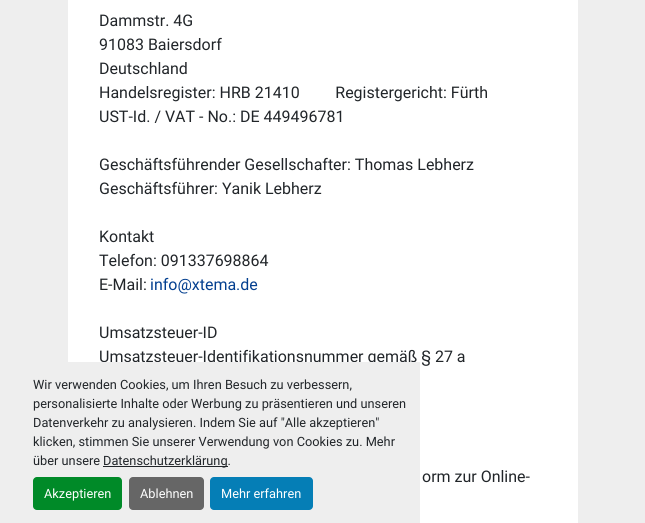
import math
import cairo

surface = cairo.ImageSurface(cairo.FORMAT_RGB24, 645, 523)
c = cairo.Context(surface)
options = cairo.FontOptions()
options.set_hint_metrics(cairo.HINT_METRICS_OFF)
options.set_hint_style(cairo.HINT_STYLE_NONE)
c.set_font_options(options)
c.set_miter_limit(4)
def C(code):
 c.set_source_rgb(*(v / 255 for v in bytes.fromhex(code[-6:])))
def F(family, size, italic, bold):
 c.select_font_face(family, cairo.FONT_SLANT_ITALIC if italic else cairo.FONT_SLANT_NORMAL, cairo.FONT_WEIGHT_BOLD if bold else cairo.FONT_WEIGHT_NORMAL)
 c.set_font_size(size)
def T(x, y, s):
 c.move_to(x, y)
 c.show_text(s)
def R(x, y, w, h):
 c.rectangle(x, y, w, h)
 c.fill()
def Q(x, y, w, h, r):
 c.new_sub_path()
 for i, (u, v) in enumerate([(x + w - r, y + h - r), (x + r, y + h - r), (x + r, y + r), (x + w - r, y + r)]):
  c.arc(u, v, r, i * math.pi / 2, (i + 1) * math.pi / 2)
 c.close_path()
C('eeeeee')
c.paint()
C('ffffff')
R(68,0,510,523)
F('Roboto',16,0,0)
C('212529')
T(99,26,'Dammstr. 4G')
T(99,50,'91083 Baiersdorf')
T(99,74,'Deutschland')
T(99,98,'Handelsregister: HRB 21410         Registergericht: Fürth')
T(99,122,'UST-Id. / VAT - No.: DE 449496781')
T(99,170,'Geschäftsführender Gesellschafter: Thomas Lebherz')
T(99,194,'Geschäftsführer: Yanik Lebherz')
T(99,242,'Kontakt')
T(99,266,'Telefon: 091337698864')
T(99,290,'E-Mail:')
C('033f8f')
T(150,290,'info@xtema.de')
C('212529')
T(99,338,'Umsatzsteuer-ID')
T(99,362,'Umsatzsteuer-Identifikationsnummer gemäß § 27 a')
T(422,482,'orm zur Online-')
C('eeeeee')
R(68,362,352,161)
F('Roboto',12.8,0,0)
C('212529')
T(33,389,'Wir verwenden Cookies, um Ihren Besuch zu verbessern,')
T(33,408,'personalisierte Inhalte oder Werbung zu präsentieren und unseren')
T(33,427,'Datenverkehr zu analysieren. Indem Sie auf "Alle akzeptieren"')
T(33,446,'klicken, stimmen Sie unserer Verwendung von Cookies zu. Mehr')
T(33,465,'über unsere')
R(103,466,125,1)
T(103,465,'Datenschutzerklärung.')
C('008a28')
Q(33,477,89,33,4)
c.fill()
C('ffffff')
T(44,498,'Akzeptieren')
C('666666')
Q(129,477,75,33,4)
c.fill()
C('ffffff')
T(140,498,'Ablehnen')
C('057eb6')
Q(210,477,103,33,4)
c.fill()
C('ffffff')
T(221,498,'Mehr erfahren')
surface.write_to_png('o.png')
